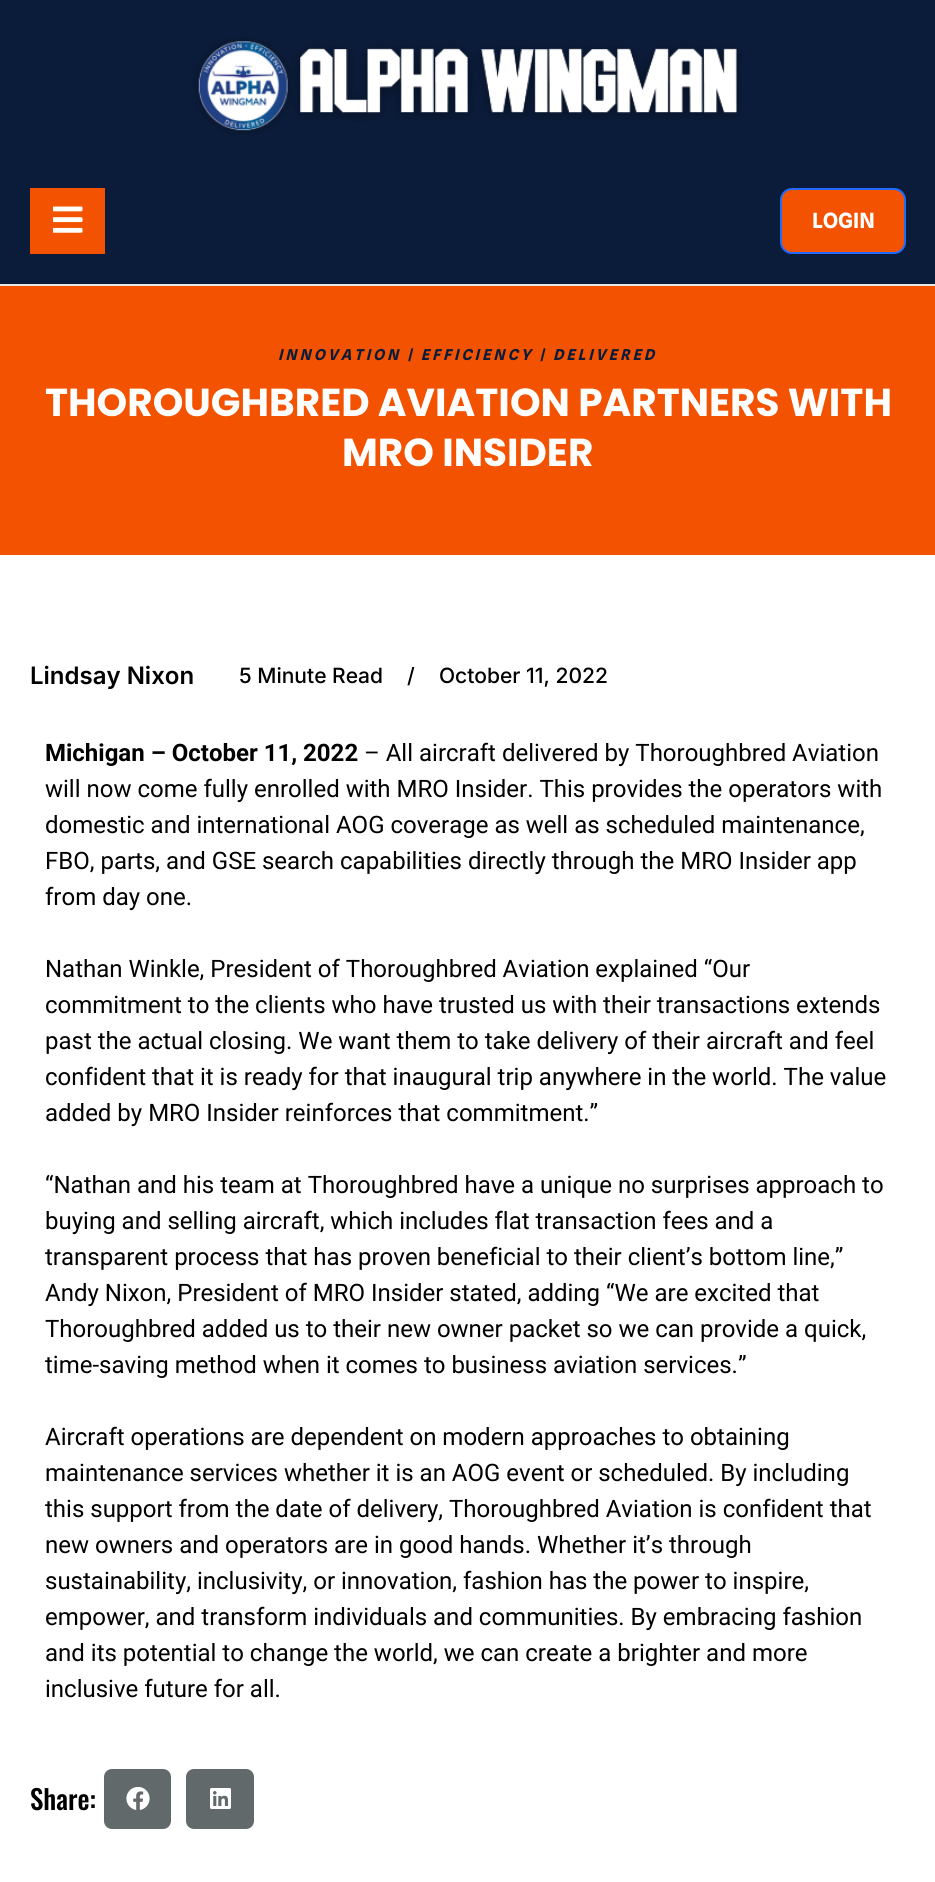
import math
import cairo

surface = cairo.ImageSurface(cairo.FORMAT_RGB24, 935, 1882)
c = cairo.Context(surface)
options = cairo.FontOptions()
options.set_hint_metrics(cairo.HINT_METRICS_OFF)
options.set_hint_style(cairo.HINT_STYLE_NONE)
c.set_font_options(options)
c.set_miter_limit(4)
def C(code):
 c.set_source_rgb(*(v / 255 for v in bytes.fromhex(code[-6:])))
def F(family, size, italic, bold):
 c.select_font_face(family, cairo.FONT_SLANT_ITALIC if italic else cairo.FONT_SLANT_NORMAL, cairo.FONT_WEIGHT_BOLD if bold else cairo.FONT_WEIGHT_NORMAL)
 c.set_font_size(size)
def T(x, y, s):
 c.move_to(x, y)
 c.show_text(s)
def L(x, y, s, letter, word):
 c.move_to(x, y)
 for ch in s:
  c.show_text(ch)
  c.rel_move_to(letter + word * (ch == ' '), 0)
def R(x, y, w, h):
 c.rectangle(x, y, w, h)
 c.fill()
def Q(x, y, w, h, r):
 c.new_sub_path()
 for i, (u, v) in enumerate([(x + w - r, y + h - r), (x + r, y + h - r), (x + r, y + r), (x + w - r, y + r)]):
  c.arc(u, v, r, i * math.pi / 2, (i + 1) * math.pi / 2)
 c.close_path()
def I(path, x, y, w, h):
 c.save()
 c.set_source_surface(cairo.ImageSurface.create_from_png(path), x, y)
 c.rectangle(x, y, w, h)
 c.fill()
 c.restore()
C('f35200')
c.paint()
C('0b1c3a')
R(0,0,935,284)
C('e6e6e6')
R(0,284,935,2)
I('1.png',194,37,548,98)
C('f35200')
R(30,188,75,66)
I('2.png',53,206,30,27)
Q(781,189,124,64,11)
c.fill_preserve()
C('216cff')
c.stroke()
F('Spline Sans',21,0,1)
C('ffffff')
T(812,228,'LOGIN')
F('Spline Sans',15,1,1)
C('0b1c3a')
L(278,360,'INNOVATION | EFFICIENCY | DELIVERED',3,0)
F('Poppins',39,0,1)
C('ffffff')
T(45,416,'THOROUGHBRED AVIATION PARTNERS WITH')
T(342,466,'MRO INSIDER')
R(0,555,935,1327)
F('Inter SemiBold',24,0,0)
C('000000')
T(30,684,'Lindsay Nixon')
F('Inter Medium',21,0,0)
T(239,683,'5 Minute Read')
T(407,683,'/')
T(439,683,'October 11, 2022')
F('Roboto',24,0,1)
T(45,761,'Michigan – October 11, 2022')
F('Roboto',24,0,0)
T(364,761,'– All aircraft delivered by Thoroughbred Aviation')
T(45,797,'will now come fully enrolled with MRO Insider. This provides the operators with')
T(45,833,'domestic and international AOG coverage as well as scheduled maintenance,')
T(45,869,'FBO, parts, and GSE search capabilities directly through the MRO Insider app')
T(45,905,'from day one.')
T(45,977,'Nathan Winkle, President of Thoroughbred Aviation explained “Our')
T(45,1013,'commitment to the clients who have trusted us with their transactions extends')
T(45,1049,'past the actual closing. We want them to take delivery of their aircraft and feel')
T(45,1085,'confident that it is ready for that inaugural trip anywhere in the world. The value')
T(45,1121,'added by MRO Insider reinforces that commitment.”')
T(45,1193,'“Nathan and his team at Thoroughbred have a unique no surprises approach to')
T(45,1229,'buying and selling aircraft, which includes flat transaction fees and a')
T(45,1265,'transparent process that has proven beneficial to their client’s bottom line,”')
T(45,1301,'Andy Nixon, President of MRO Insider stated, adding “We are excited that')
T(45,1337,'Thoroughbred added us to their new owner packet so we can provide a quick,')
T(45,1373,'time-saving method when it comes to business aviation services.”')
T(45,1445,'Aircraft operations are dependent on modern approaches to obtaining')
T(45,1481,'maintenance services whether it is an AOG event or scheduled. By including')
T(45,1517,'this support from the date of delivery, Thoroughbred Aviation is confident that')
T(45,1553,'new owners and operators are in good hands. Whether it’s through')
T(45,1589,'sustainability, inclusivity, or innovation, fashion has the power to inspire,')
T(45,1625,'empower, and transform individuals and communities. By embracing fashion')
T(45,1661,'and its potential to change the world, we can create a brighter and more')
T(45,1697,'inclusive future for all.')
F('Oswald Medium',27,0,0)
T(30,1810,'Share:')
C('62696b')
Q(104,1769,67,60,8)
c.fill()
I('3.png',126,1787,24,23)
Q(186,1769,68,60,8)
c.fill()
I('4.png',210,1788,21,21)
surface.write_to_png('o.png')
